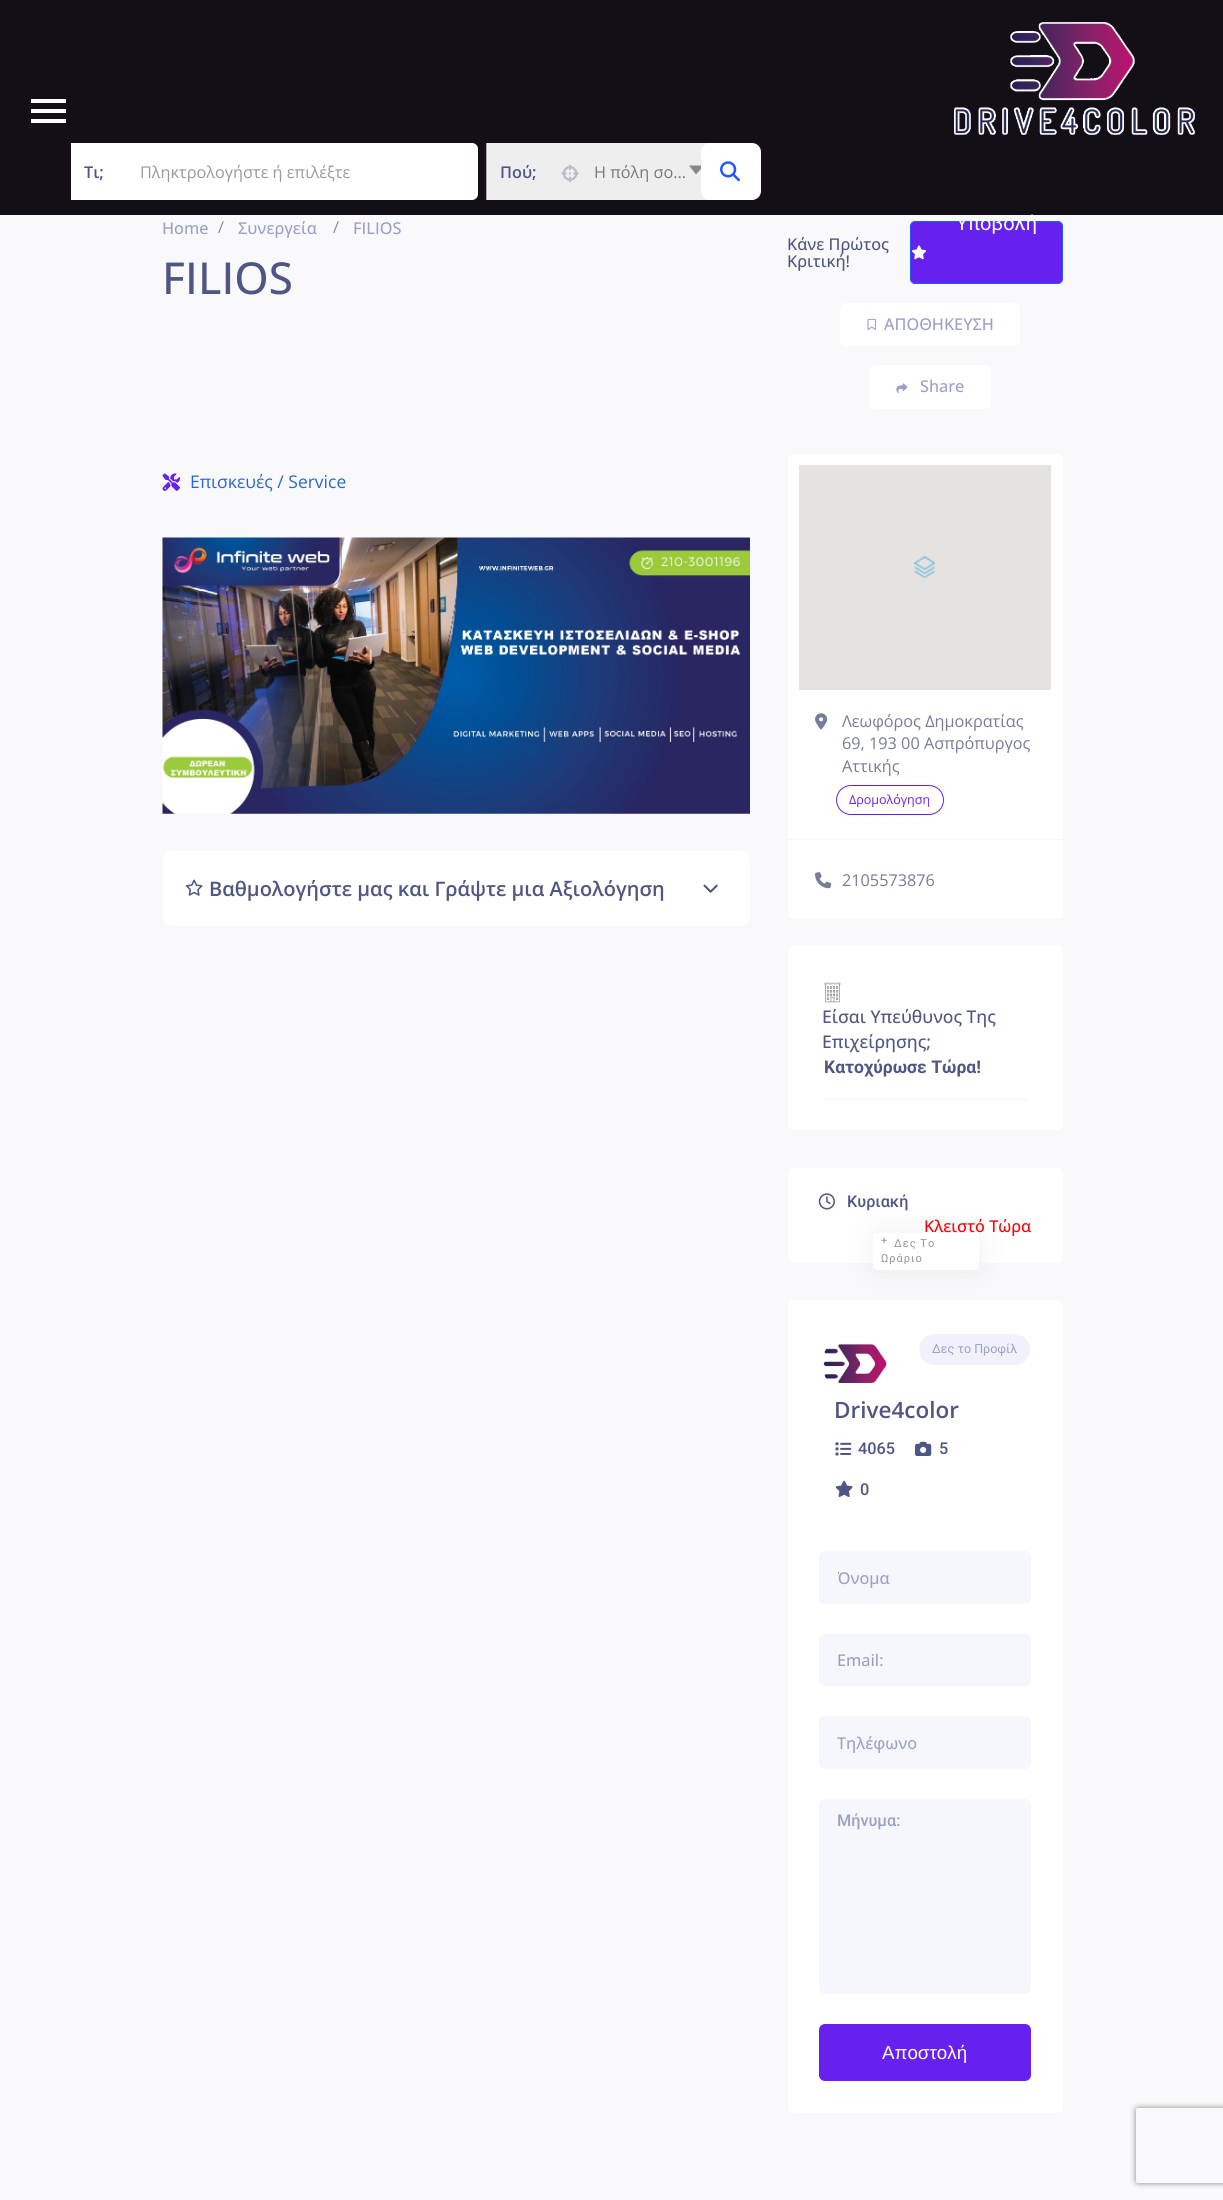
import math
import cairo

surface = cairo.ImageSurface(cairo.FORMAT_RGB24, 1223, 2200)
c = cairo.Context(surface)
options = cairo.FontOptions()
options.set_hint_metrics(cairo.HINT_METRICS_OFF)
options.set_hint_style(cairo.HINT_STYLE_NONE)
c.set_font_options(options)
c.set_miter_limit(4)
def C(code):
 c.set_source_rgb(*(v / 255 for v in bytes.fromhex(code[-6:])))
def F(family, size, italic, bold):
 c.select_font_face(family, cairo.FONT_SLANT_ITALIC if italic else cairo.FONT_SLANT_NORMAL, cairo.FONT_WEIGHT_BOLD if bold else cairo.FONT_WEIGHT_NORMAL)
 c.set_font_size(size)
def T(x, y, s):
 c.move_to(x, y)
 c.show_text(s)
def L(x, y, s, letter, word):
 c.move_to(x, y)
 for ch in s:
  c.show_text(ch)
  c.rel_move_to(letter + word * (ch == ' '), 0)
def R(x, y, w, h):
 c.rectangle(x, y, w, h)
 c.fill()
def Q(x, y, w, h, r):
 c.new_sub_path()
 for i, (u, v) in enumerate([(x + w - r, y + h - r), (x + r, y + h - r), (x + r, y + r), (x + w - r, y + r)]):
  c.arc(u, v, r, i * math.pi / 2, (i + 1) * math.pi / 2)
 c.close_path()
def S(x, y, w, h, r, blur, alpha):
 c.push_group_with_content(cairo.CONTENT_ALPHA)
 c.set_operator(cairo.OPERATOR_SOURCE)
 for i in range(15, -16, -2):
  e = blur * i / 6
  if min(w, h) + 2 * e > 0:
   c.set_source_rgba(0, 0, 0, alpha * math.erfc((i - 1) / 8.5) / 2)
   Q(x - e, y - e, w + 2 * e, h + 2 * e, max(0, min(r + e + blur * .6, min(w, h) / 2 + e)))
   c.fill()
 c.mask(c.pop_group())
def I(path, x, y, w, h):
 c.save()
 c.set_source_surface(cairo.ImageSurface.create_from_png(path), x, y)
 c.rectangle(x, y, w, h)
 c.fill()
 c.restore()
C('f9f9fb')
c.paint()
C('140f16')
R(0,0,1223,215)
I('1.png',954,22,241,113)
C('ffffff')
R(31,99,35,4)
R(31,109,35,4)
R(31,119,35,4)
Q(71,143,407,57,6)
c.fill()
R(71,143,6,57)
F('Open Sans SemiBold',16.25,0,0)
C('4f5685')
T(84,178,'Τι;')
F('Open Sans',16.25,0,0)
C('999999')
T(140,178,'Πληκτρολογήστε ή επιλέξτε')
C('eeeeee')
R(487,143,223,57)
F('Open Sans SemiBold',16.25,0,0)
C('4f5685')
T(500,178,'Πού;')
I('2.png',561,164,18,19)
C('aaaaaa')
R(486,143,1,57)
F('Open Sans',16.25,0,0)
C('797979')
T(594,178,'Η πόλη σο...')
C('888888')
c.new_path()
c.move_to(689,165.5)
c.line_to(704,165.5)
c.line_to(696,174.5)
c.close_path()
c.fill()
C('ffffff')
Q(701,143,60,57,9)
c.fill()
I('3.png',720,161,20,21)
F('Open Sans Medium',16.25,0,0)
C('9aa0ca')
T(162,234,'Home')
F('Roboto',15,0,0)
C('7f7f7f')
T(218,232,'/')
F('Open Sans Medium',16.25,0,0)
C('9aa0ca')
T(238,234,'Συνεργεία')
F('Roboto',15,0,0)
C('7f7f7f')
T(333,232,'/')
F('Open Sans Medium',16.25,0,0)
C('9aa0ca')
T(353,234,'FILIOS')
F('Open Sans Medium',44,0,0)
C('4f5685')
T(162,294,'FILIOS')
C('6621ef')
Q(910.5,221.5,152,62,4.5)
c.fill_preserve()
C('2458ff')
c.set_line_width(1)
c.stroke()
F('Roboto',20,0,0)
C('ffffff')
T(956,230,'Υποβολή')
I('4.png',911,245,15,15)
F('Open Sans Medium',16.25,0,0)
C('4f5685')
T(787,250,'Κάνε Πρώτος')
T(787,267,'Κριτική!')
C('ffffff')
Q(840,303,180,43,6)
c.fill()
I('5.png',867,318,9,13)
C('9aa0ca')
T(884,330,'ΑΠΟΘΗΚΕΥΣΗ')
C('ffffff')
Q(869,365,122,44,6)
c.fill()
I('6.png',896,383,12,11)
C('9aa0ca')
T(920,392,'Share')
I('7.png',162,473,18,18)
F('Open Sans',17.5,0,0)
C('2967d1')
T(190,488,'Επισκευές / Service')
I('8.png',162,537,588,277)
C('ffffff')
Q(163,851,587,75,9)
c.fill()
I('9.png',185,879,18,17)
F('Open Sans SemiBold',20,0,0)
C('4f5685')
T(209,896,'Βαθμολογήστε μας και Γράψτε μια Αξιολόγηση')
I('10.png',703,884,15,9)
C('ffffff')
Q(788,454,275,466,6)
c.fill()
C('e5e3df')
R(799,465,252,225)
I('11.png',913,556,22,22)
C('f7f7f7')
R(788,839,275,1)
I('12.png',815,713,13,17)
F('Open Sans',16.25,0,0)
C('777c9b')
T(842,727,'Λεωφόρος Δημοκρατίας')
T(842,749,'69, 193 00 Ασπρόπυργος')
T(842,772,'Αττικής')
Q(836.5,785.5,107,29,14.5)
C('6621ef')
c.stroke()
F('Open Sans',12.5,0,0)
T(849,804,'Δρομολόγηση')
C('f7f7f7')
R(788,919,275,1)
I('13.png',815,872,17,17)
F('Open Sans',16.25,0,0)
C('777c9b')
T(842,886,'2105573876')
C('ffffff')
Q(788,945,275,185,6)
c.fill()
C('f7f7f7')
R(823,1099,205,1)
I('14.png',824,982,17,21)
F('Open Sans Medium',17.5,0,0)
C('4f5685')
T(822,1023,'Είσαι Υπεύθυνος Της')
T(822,1048,'Επιχείρησης;')
F('Roboto',17.5,0,1)
T(824,1073,'Κατοχύρωσε Τώρα!')
C('ffffff')
Q(788,1168,275,95,6)
c.fill()
I('15.png',818,1193,17,17)
F('Roboto Medium',16.25,0,0)
C('4f5685')
T(847,1207,'Κυριακή')
F('Open Sans Medium',16.25,0,0)
C('ff0000')
T(924,1232,'Κλειστό Τώρα')
C('ffffff')
Q(788,1300,275,813,6)
c.fill()
C('4f5685')
S(871,1231,109,40,5,16,.08)
C('ffffff')
Q(873,1233,106,37,4)
c.fill()
F('Roboto',11,0,0)
C('939393')
L(881,1244,'+',1,0)
L(894,1247,'Δες Το',1,0)
L(881,1262,'Ωράριο',1,0)
C('f0f1fb')
Q(919,1334,111,31,15.5)
c.fill()
F('Roboto',12.5,0,0)
C('9aa0ca')
T(932,1353,'Δες το Προφίλ')
F('Open Sans SemiBold',22.5,0,0)
C('4f5685')
T(834,1418,'Drive4color')
I('16.png',835,1442,17,14)
F('Roboto Medium',16.25,0,0)
T(858,1454,'4065')
I('17.png',915,1441,17,15)
T(939,1454,'5')
I('18.png',835,1480,18,17)
T(860,1495,'0')
I('19.png',823,1344,64,39)
C('f6f7fd')
Q(819,1551,212,53,6)
c.fill()
c.save()
c.rectangle(838,1566,175,23)
c.clip()
F('Open Sans Medium',16.25,0,0)
C('9aa0ca')
T(837,1584,'Όνομα')
c.restore()
Q(819,1634,212,52,6)
c.fill()
F('Open Sans Medium',16.25,0,0)
C('9aa0ca')
T(837,1666,'Email:')
C('f6f7fd')
Q(819,1716,212,53,6)
c.fill()
C('9aa0ca')
T(837,1749,'Τηλέφωνο')
C('f6f7fd')
Q(819,1799,212,195,6)
c.fill()
F('Roboto Medium',16.25,0,0)
C('9aa0ca')
T(837,1826,'Μήνυμα:')
C('6621ef')
Q(819,2024,212,57,6)
c.fill()
F('Liberation Sans',18.75,0,0)
C('ffffff')
T(882,2059,'Αποστολή')
c.save()
c.set_fill_rule(cairo.FILL_RULE_EVEN_ODD)
c.new_path()
c.move_to(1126,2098)
c.line_to(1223,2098)
c.line_to(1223,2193)
c.line_to(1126,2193)
c.close_path()
c.move_to(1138.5,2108)
c.line_to(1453.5,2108)
c.curve_to(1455,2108,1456,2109,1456,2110.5)
c.line_to(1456,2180.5)
c.curve_to(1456,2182,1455,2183,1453.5,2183)
c.line_to(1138.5,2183)
c.curve_to(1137,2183,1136,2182,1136,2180.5)
c.line_to(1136,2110.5)
c.curve_to(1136,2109,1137,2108,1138.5,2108)
c.close_path()
c.clip()
C('808080')
S(1136,2108,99,75,2.5,3,1)
c.restore()
surface.write_to_png('o.png')
